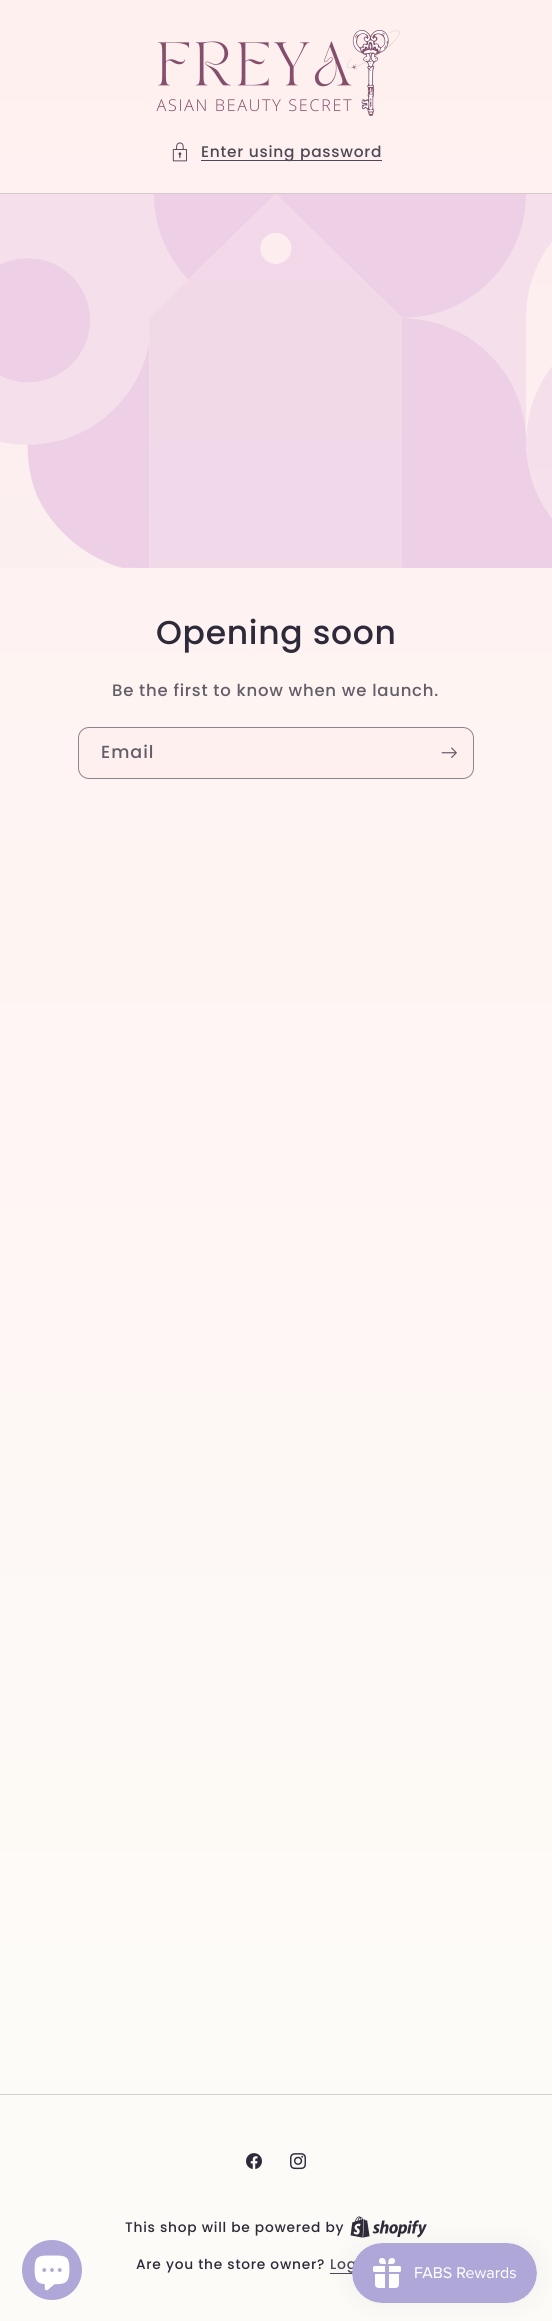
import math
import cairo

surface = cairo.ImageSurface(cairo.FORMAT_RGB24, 552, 2321)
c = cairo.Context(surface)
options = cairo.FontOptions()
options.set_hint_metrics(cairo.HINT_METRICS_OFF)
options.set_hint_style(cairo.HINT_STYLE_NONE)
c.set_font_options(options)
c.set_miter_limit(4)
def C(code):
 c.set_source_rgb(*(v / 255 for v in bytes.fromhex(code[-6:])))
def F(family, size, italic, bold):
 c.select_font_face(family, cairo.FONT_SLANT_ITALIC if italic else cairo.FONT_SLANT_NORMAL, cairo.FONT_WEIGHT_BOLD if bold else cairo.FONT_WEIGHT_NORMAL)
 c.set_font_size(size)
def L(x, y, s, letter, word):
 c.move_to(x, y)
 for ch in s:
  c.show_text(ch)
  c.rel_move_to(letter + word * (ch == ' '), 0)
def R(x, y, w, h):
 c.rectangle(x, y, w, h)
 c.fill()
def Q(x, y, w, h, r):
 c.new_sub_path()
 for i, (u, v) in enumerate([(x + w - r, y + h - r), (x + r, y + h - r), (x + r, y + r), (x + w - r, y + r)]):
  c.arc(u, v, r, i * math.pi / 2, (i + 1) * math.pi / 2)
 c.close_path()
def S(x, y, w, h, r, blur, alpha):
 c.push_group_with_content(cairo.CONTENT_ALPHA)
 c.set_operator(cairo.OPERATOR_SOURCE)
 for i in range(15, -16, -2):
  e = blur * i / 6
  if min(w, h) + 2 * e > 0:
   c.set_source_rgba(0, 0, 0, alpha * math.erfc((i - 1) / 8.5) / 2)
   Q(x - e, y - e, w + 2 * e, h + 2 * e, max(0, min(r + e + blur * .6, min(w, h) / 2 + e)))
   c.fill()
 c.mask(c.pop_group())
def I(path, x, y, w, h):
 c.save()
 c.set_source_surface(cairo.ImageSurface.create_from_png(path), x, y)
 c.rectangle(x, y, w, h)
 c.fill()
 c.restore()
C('ffffff')
c.paint()
gradient = cairo.LinearGradient(276,0,276,2321)
gradient.add_color_stop_rgba(0,1,0.941,0.941,1)
gradient.add_color_stop_rgba(.87,0.992,0.984,0.969,1)
c.set_source(gradient)
R(0,0,552,2321)
I('1.png',156,30,244,86)
I('2.png',172,142,15,20)
C('4d4855')
R(201,160,181,1)
F('Poppins Medium',15.4,0,0)
C('4d4956')
L(201,157,'Enter using password',.75,0)
C('d5c9cc')
R(0,193,552,1)
I('3.png',0,194,552,374)
F('Poppins Medium',33,0,0)
C('2e2a39')
L(156,644,'Opening soon',.7,0)
F('Poppins Medium',16.5,0,0)
C('625d67')
L(112,696,'Be the first to know when we launch.',.75,0)
C('fff0f0')
Q(79,728,394,50,10)
c.fill()
Q(78.5,727.5,395,51,10.5)
C('8c858d')
c.set_line_width(1)
c.stroke()
F('Poppins Medium',17.5,0,0)
C('625d67')
L(101,758,'Email',1,0)
I('4.png',441,747,16,11)
C('afa7d7')
c.arc(52,2270,30,0,2 * math.pi)
c.fill()
I('5.png',34,2255,36,36)
C('d4d1d1')
R(0,2094,552,1)
I('6.png',246,2153,16,16)
I('7.png',290,2153,16,17)
F('Poppins Medium',13.75,0,0)
C('2e2a39')
L(125,2232,'This shop will be powered by',.75,0)
I('8.png',350,2216,77,22)
L(136,2269,'Are you the store owner?',.75,0)
F('Poppins Medium',14,0,0)
C('4d4956')
L(330,2269,'Log',.75,0)
R(330,2273,23,1)
C('000000')
S(352,2243,185,60,30,12.5,.05)
I('9.png',352,2243,185,60)
surface.write_to_png('o.png')
